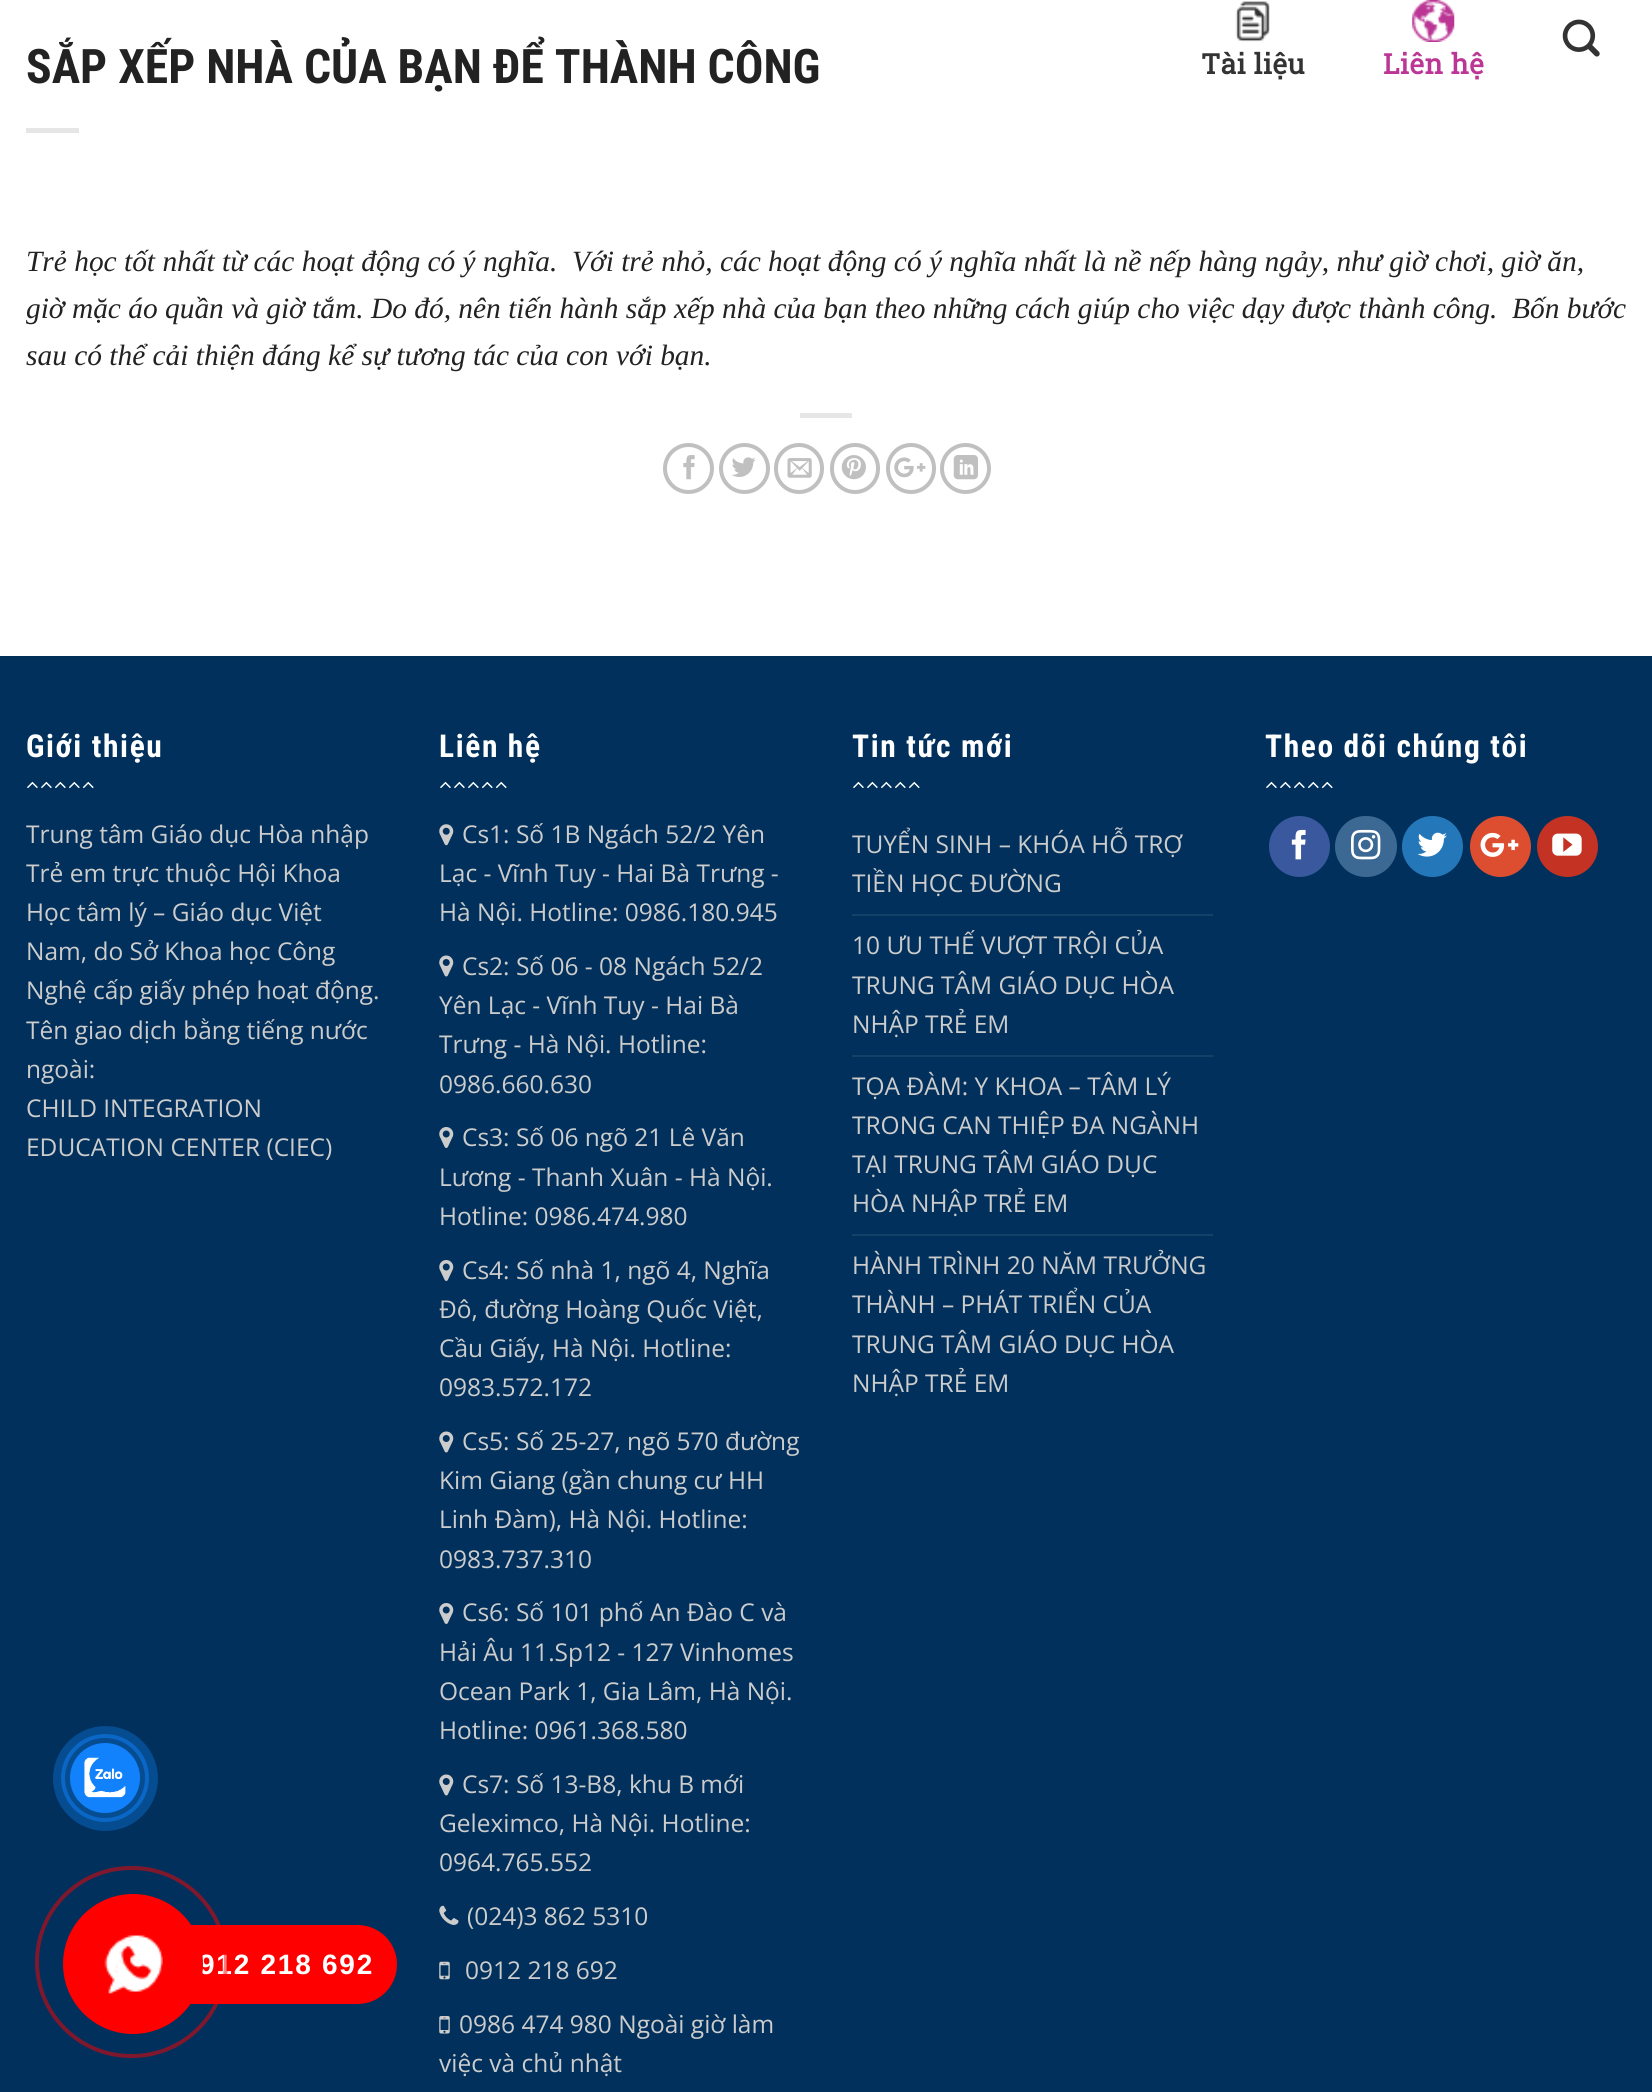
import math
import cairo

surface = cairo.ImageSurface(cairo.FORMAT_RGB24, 1652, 2092)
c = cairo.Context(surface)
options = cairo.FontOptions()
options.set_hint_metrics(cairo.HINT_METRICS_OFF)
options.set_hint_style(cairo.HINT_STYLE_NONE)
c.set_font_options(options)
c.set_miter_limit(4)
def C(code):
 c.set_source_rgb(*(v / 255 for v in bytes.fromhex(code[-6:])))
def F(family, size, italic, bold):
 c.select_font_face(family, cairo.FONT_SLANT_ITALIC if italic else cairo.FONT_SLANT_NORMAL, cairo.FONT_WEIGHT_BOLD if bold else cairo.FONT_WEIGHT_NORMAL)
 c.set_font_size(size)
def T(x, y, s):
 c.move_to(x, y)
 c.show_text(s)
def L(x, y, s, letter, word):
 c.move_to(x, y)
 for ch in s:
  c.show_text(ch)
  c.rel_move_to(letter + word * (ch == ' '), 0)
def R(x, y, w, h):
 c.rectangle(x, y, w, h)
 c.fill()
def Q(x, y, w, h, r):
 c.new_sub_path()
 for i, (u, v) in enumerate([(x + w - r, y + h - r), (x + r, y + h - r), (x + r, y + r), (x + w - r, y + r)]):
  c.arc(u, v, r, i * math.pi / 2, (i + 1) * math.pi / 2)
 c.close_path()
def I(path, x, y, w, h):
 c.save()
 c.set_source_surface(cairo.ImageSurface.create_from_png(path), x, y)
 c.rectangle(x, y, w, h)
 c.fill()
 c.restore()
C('ffffff')
c.paint()
F('Roboto Condensed',47.6,0,1)
C('222222')
T(26,83,'SẮP XẾP NHÀ CỦA BẠN ĐỂ THÀNH CÔNG')
C('e6e6e6')
R(26,128,53,5)
F('Liberation Serif',29.4,1,0)
C('222222')
T(26,271,'Trẻ học tốt nhất từ các hoạt động có ý nghĩa.  Với trẻ nhỏ, các hoạt động có ý nghĩa nhất là nề nếp hàng ngảy, như giờ chơi, giờ ăn,')
T(26,318,'giờ mặc áo quần và giờ tắm. Do đó, nên tiến hành sắp xếp nhà của bạn theo những cách giúp cho việc dạy được thành công.  Bốn bước')
T(26,365,'sau có thể cải thiện đáng kể sự tương tác của con với bạn.')
C('e6e6e6')
R(800,413,52,5)
c.new_path()
c.arc(688.5,468.5,23.5,0,2 * math.pi)
C('c0c0c0')
c.set_line_width(4)
c.stroke()
I('1.png',683,455,12,25)
c.arc(744.5,468.5,23.5,0,2 * math.pi)
c.stroke()
I('2.png',732,457,24,20)
Q(776,445,46,47,23)
c.stroke()
I('3.png',787,458,25,20)
Q(832,445,46,47,23)
c.stroke()
I('4.png',841,455,25,25)
Q(888,445,46,47,23)
c.stroke()
I('5.png',894,457,32,21)
c.arc(965.5,468.5,23.5,0,2 * math.pi)
c.stroke()
I('6.png',953,455,25,25)
I('7.png',1562,19,38,38)
I('8.png',1235,1,35,41)
F('Roboto Slab',28,0,1)
C('333333')
L(1201,74,'Tài liệu',.5,0)
I('9.png',1412,0,43,42)
C('bb3695')
L(1383,74,'Liên hệ',.5,0)
C('00305b')
R(0,658,1652,1434)
C('002e56')
R(0,656,1652,2)
F('Roboto Condensed',31.5,0,1)
C('ffffff')
L(26,757,'Giới thiệu',1.6,0)
I('10.png',27,781,67,8)
F('Open Sans',24.5,0,0)
C('cccccc')
T(26,843,'Trung tâm Giáo dục Hòa nhập')
T(26,882,'Trẻ em trực thuộc Hội Khoa')
T(26,921,'Học tâm lý – Giáo dục Việt')
T(26,960,'Nam, do Sở Khoa học Công')
T(26,999,'Nghệ cấp giấy phép hoạt động.')
T(26,1039,'Tên giao dịch bằng tiếng nước')
T(26,1078,'ngoài:')
T(26,1117,'CHILD INTEGRATION')
T(26,1156,'EDUCATION CENTER (CIEC)')
F('Roboto Condensed',31.5,0,1)
C('ffffff')
L(439,757,'Liên hệ',1.6,0)
I('10.png',440,781,67,8)
I('11.png',439,824,15,22)
F('Open Sans',24.5,0,0)
C('cccccc')
T(462,843,'Cs1: Số 1B Ngách 52/2 Yên')
T(439,882,'Lạc - Vĩnh Tuy - Hai Bà Trưng -')
T(439,921,'Hà Nội. Hotline: 0986.180.945')
I('12.png',439,955,15,22)
T(462,975,'Cs2: Số 06 - 08 Ngách 52/2')
T(439,1014,'Yên Lạc - Vĩnh Tuy - Hai Bà')
T(439,1053,'Trưng - Hà Nội. Hotline:')
T(439,1093,'0986.660.630')
I('13.png',439,1127,15,21)
T(462,1146,'Cs3: Số 06 ngõ 21 Lê Văn')
T(439,1186,'Lương - Thanh Xuân - Hà Nội.')
T(439,1225,'Hotline: 0986.474.980')
I('13.png',439,1260,15,21)
T(462,1279,'Cs4: Số nhà 1, ngõ 4, Nghĩa')
T(439,1318,'Đô, đường Hoàng Quốc Việt,')
T(439,1357,'Cầu Giấy, Hà Nội. Hotline:')
T(439,1396,'0983.572.172')
I('12.png',439,1431,15,22)
T(462,1450,'Cs5: Số 25-27, ngõ 570 đường')
T(439,1489,'Kim Giang (gần chung cư HH')
T(439,1528,'Linh Đàm), Hà Nội. Hotline:')
T(439,1568,'0983.737.310')
I('13.png',439,1603,15,21)
T(462,1621,'Cs6: Số 101 phố An Đào C và')
T(439,1661,'Hải Âu 11.Sp12 - 127 Vinhomes')
T(439,1700,'Ocean Park 1, Gia Lâm, Hà Nội.')
T(439,1739,'Hotline: 0961.368.580')
I('12.png',439,1774,15,22)
T(462,1793,'Cs7: Số 13-B8, khu B mới')
T(439,1832,'Geleximco, Hà Nội. Hotline:')
T(439,1871,'0964.765.552')
I('14.png',439,1905,20,20)
T(467,1925,'(024)3 862 5310')
I('15.png',439,1961,11,19)
T(465,1979,'0912 218 692')
I('16.png',439,2016,11,18)
T(459,2033,'0986 474 980 Ngoài giờ làm')
T(439,2072,'việc và chủ nhật')
F('Roboto Condensed',31.5,0,1)
C('ffffff')
L(852,757,'Tin tức mới',1.6,0)
I('10.png',853,781,67,8)
F('Open Sans',24.5,0,0)
C('cccccc')
T(852,853,'TUYỂN SINH – KHÓA HỖ TRỢ')
T(852,892,'TIỀN HỌC ĐƯỜNG')
C('144168')
R(852,914,361,2)
C('cccccc')
T(852,954,'10 ƯU THẾ VƯỢT TRỘI CỦA')
T(852,994,'TRUNG TÂM GIÁO DỤC HÒA')
T(852,1033,'NHẬP TRẺ EM')
C('144168')
R(852,1055,361,2)
C('cccccc')
T(852,1095,'TỌA ĐÀM: Y KHOA – TÂM LÝ')
T(852,1134,'TRONG CAN THIỆP ĐA NGÀNH')
T(852,1173,'TẠI TRUNG TÂM GIÁO DỤC')
T(852,1212,'HÒA NHẬP TRẺ EM')
C('144168')
R(852,1234,361,2)
C('cccccc')
T(852,1274,'HÀNH TRÌNH 20 NĂM TRƯỞNG')
T(852,1313,'THÀNH – PHÁT TRIỂN CỦA')
T(852,1353,'TRUNG TÂM GIÁO DỤC HÒA')
T(852,1392,'NHẬP TRẺ EM')
F('Roboto Condensed',31.5,0,1)
C('ffffff')
L(1265,757,'Theo dõi chúng tôi',1.6,0)
I('10.png',1266,781,67,8)
C('3a589d')
c.arc(1299.5,846.5,29.5,0,2 * math.pi)
c.fill_preserve()
c.set_line_width(2)
c.stroke()
I('17.png',1291,829,15,31)
C('3b6994')
Q(1336,817,60,59,29.5)
c.fill_preserve()
c.stroke()
I('18.png',1351,829,30,31)
C('2478ba')
c.arc(1432.5,846.5,29.5,0,2 * math.pi)
c.fill_preserve()
c.stroke()
I('19.png',1417,832,30,25)
C('dd4e31')
c.arc(1500.5,846.5,29.5,0,2 * math.pi)
c.fill_preserve()
c.stroke()
I('20.png',1480,832,39,25)
C('c33223')
c.arc(1567.5,846.5,29.5,0,2 * math.pi)
c.fill_preserve()
c.stroke()
I('21.png',1552,833,30,23)
c.arc(105,1778,42,0,2 * math.pi)
C('0959ac')
c.set_line_width(4)
c.stroke()
c.set_source_rgba(0.067,0.51,0.988,0.34)
c.arc(105.5,1778.5,52.5,0,2 * math.pi)
c.fill()
C('1182fc')
c.arc(105,1778,35,0,2 * math.pi)
c.fill()
I('22.png',84,1757,42,41)
C('ff0000')
Q(109,1925,288,79,39.5)
c.fill()
F('Liberation Sans',28,0,1)
C('ffffff')
L(199,1974,'912 218 692',1.75,0)
Q(37,1868,189,188,94)
c.set_source_rgba(1,0,0,0.5)
c.stroke()
C('ff0000')
c.arc(133,1964,70,0,2 * math.pi)
c.fill()
I('23.png',104,1934,59,60)
surface.write_to_png('o.png')
